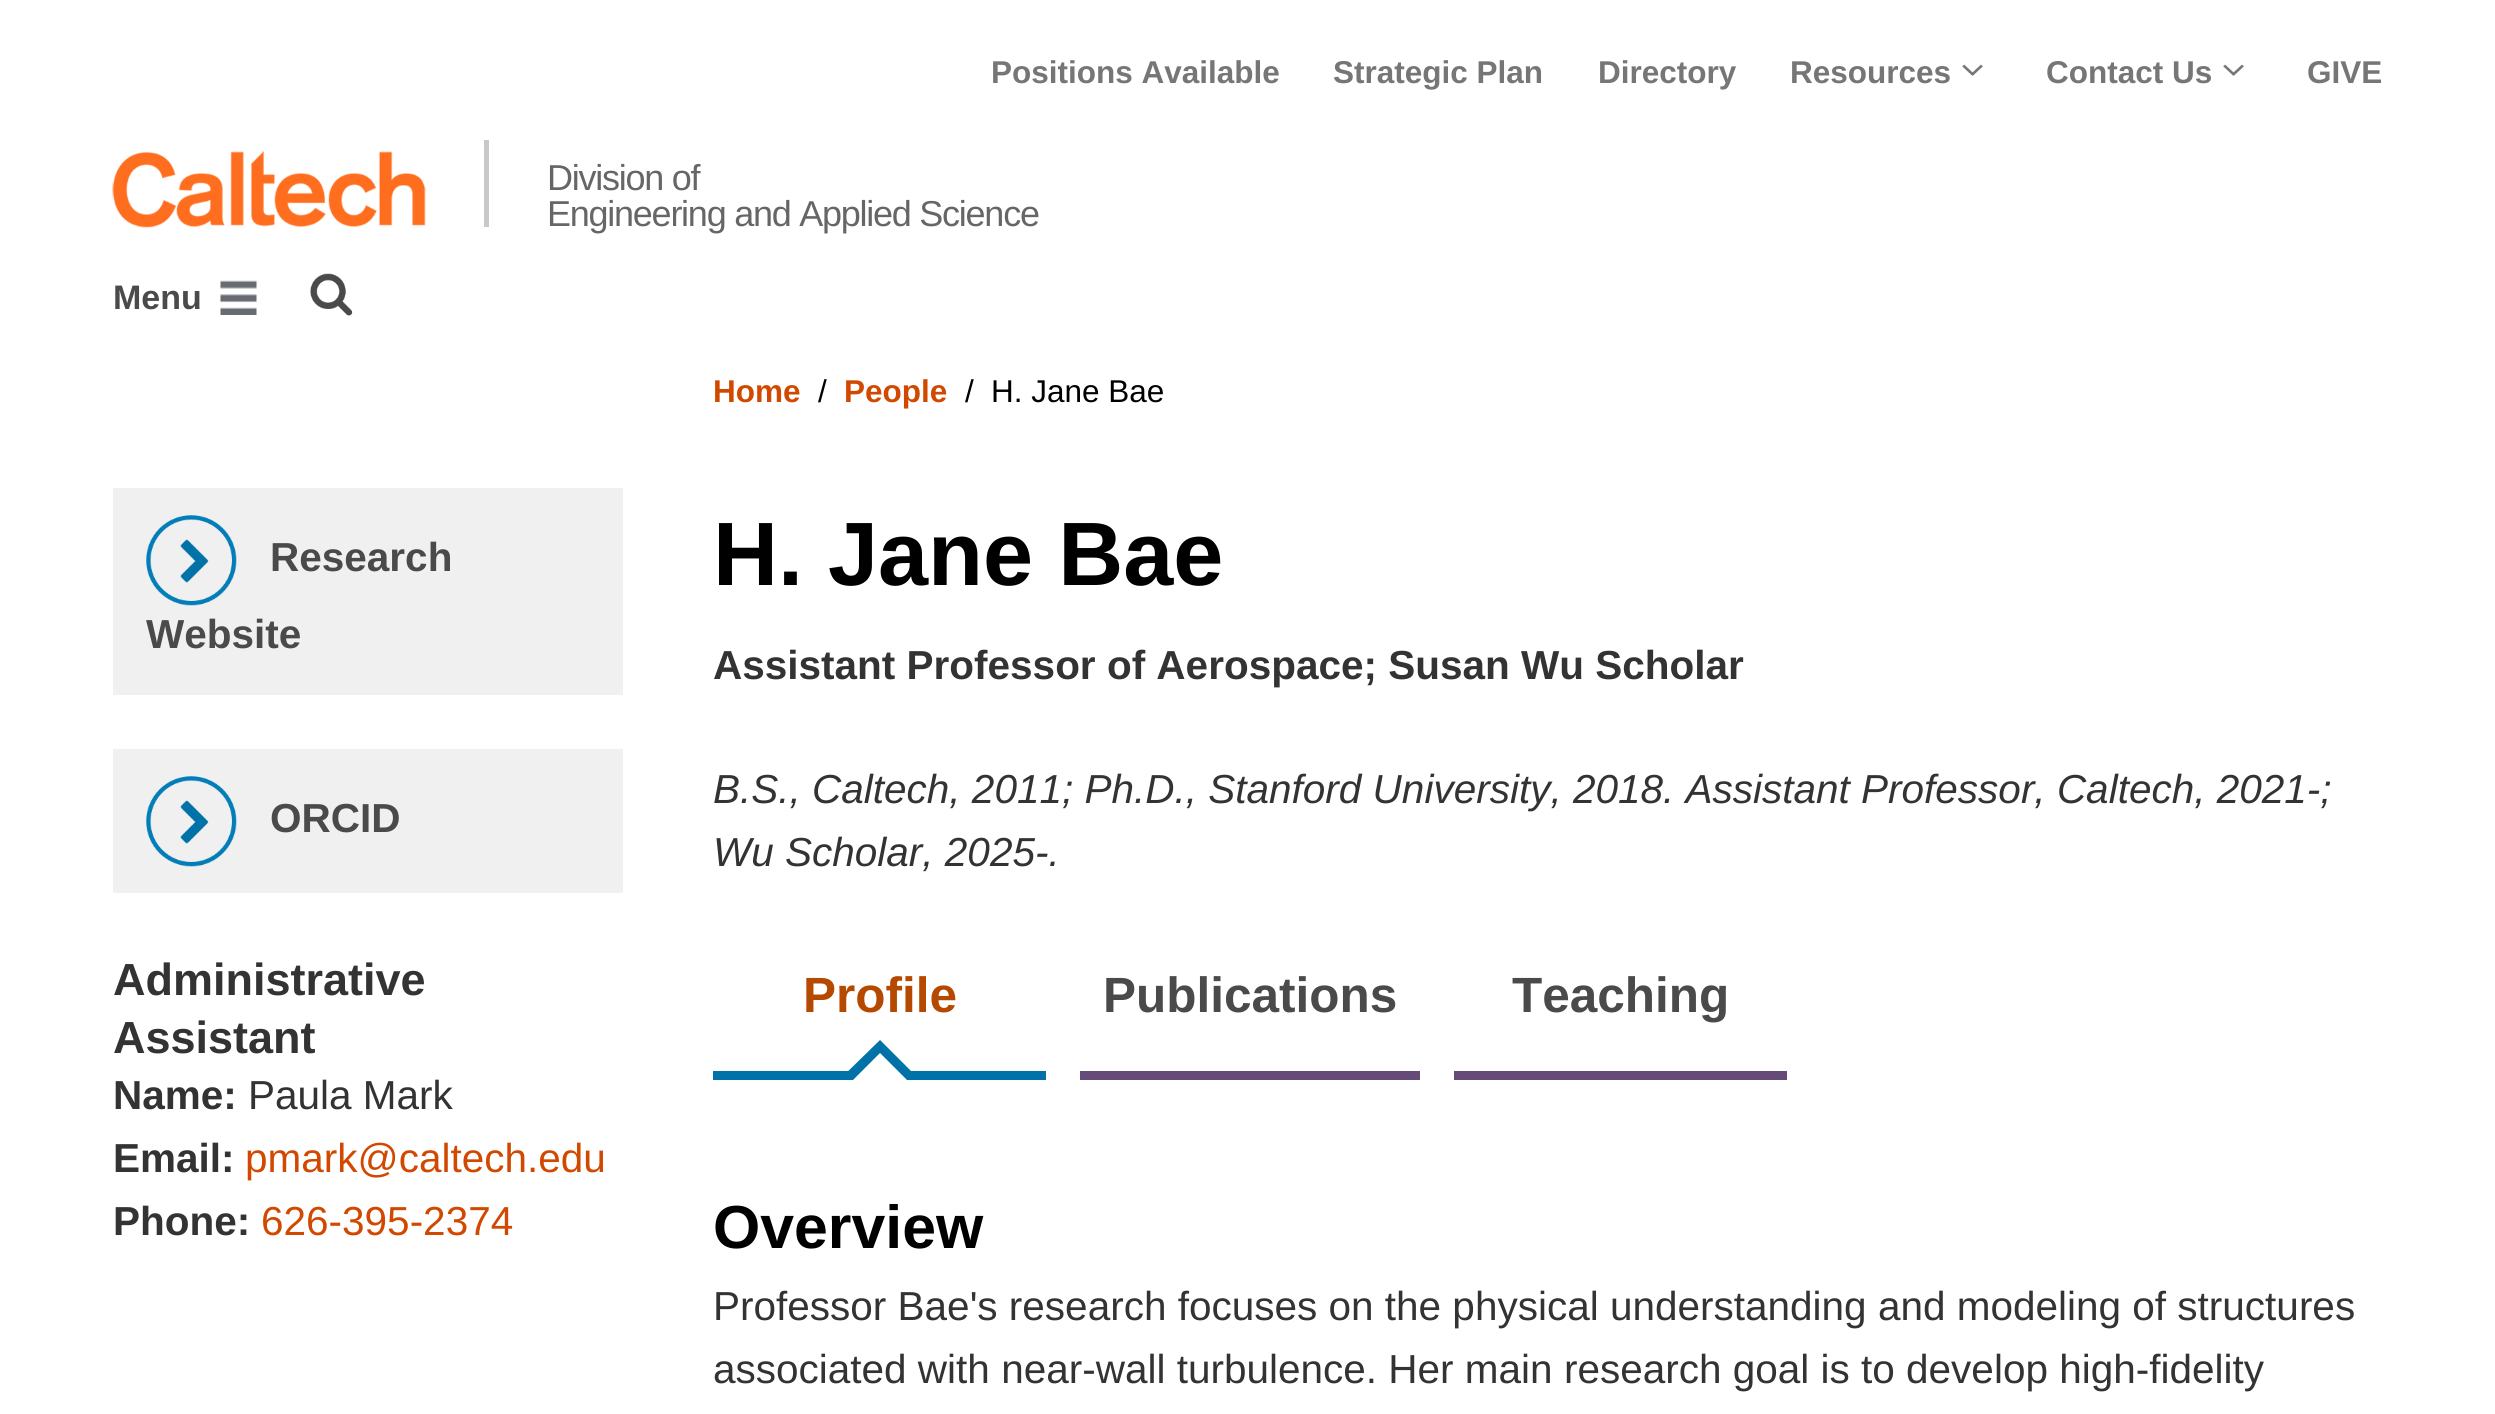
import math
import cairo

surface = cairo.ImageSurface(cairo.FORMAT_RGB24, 2495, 1414)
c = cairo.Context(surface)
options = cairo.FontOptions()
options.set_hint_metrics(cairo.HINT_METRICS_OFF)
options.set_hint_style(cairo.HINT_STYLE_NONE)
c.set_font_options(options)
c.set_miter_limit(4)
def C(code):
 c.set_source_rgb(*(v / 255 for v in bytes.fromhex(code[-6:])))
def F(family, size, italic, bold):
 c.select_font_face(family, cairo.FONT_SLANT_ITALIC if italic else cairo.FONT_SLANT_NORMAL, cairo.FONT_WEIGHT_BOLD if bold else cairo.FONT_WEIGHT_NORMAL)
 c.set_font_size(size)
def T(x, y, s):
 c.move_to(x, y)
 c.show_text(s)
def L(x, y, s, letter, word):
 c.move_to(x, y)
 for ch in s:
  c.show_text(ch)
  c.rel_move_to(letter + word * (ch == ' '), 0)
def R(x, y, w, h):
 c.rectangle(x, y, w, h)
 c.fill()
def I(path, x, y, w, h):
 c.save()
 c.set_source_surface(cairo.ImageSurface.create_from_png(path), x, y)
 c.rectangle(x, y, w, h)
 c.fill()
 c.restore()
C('ffffff')
c.paint()
F('Liberation Sans',31.5,0,1)
C('767676')
T(991,83,'Positions Available')
T(1333,83,'Strategic Plan')
T(1598,83,'Directory')
T(1790,83,'Resources')
I('1.png',1962,64,21,12)
T(2046,83,'Contact Us')
I('1.png',2223,64,21,12)
T(2307,83,'GIVE')
I('2.png',112,150,314,78)
C('c8c8c8')
R(484,140,5,87)
F('Liberation Sans',36,0,0)
C('666666')
L(547,190,'Division of',-1.25,0)
L(547,226,'Engineering and Applied Science',-1.25,0)
F('Liberation Sans',34,0,1)
C('4a4a4a')
T(113,309,'Menu')
I('3.png',220,280,37,35)
I('4.png',310,273,43,43)
C('f0f0f0')
R(113,488,510,207)
I('5.png',146,515,91,91)
F('Liberation Sans',40.5,0,1)
C('4a4a4a')
T(270,571,'Research')
T(146,648,'Website')
C('f0f0f0')
R(113,749,510,144)
I('6.png',146,776,91,91)
C('4a4a4a')
T(270,832,'ORCID')
F('Liberation Sans',45,0,1)
C('333333')
T(113,995,'Administrative')
T(113,1053,'Assistant')
F('Liberation Sans',40.5,0,1)
T(113,1109,'Name:')
F('Liberation Sans',40.5,0,0)
T(248,1109,'Paula Mark')
F('Liberation Sans',40.5,0,1)
T(113,1172,'Email:')
F('Liberation Sans',40.5,0,0)
C('d14900')
T(245,1172,'pmark@caltech.edu')
F('Liberation Sans',40.5,0,1)
C('333333')
T(113,1235,'Phone:')
F('Liberation Sans',40.5,0,0)
C('d14900')
T(261,1235,'626-395-2374')
F('Liberation Sans',31.5,0,1)
T(713,402,'Home')
F('Liberation Sans',31.5,0,0)
C('000000')
T(818,402,'/')
F('Liberation Sans',31.5,0,1)
C('d14900')
T(844,402,'People')
F('Liberation Sans',31.5,0,0)
C('000000')
T(965,402,'/')
T(991,402,'H. Jane Bae')
F('Liberation Sans',90,0,1)
T(713,585,'H. Jane Bae')
F('Liberation Sans',40.5,0,1)
C('333333')
T(713,679,'Assistant Professor of Aerospace; Susan Wu Scholar')
F('Liberation Sans',40.5,1,0)
T(713,803,'B.S., Caltech, 2011; Ph.D., Stanford University, 2018. Assistant Professor, Caltech, 2021-;')
T(713,866,'Wu Scholar, 2025-.')
C('0072a8')
R(713,1071,333,9)
F('Liberation Sans',49.5,0,1)
C('b54900')
T(803,1012,'Profile')
C('0072a8')
c.new_path()
c.move_to(920,1080)
c.line_to(839,1080)
c.line_to(880,1040)
c.close_path()
c.fill()
C('ffffff')
c.new_path()
c.move_to(907,1080)
c.line_to(853,1080)
c.line_to(880,1053)
c.close_path()
c.fill()
C('644b78')
R(1080,1071,340,9)
C('4a4a4a')
T(1103,1012,'Publications')
C('644b78')
R(1454,1071,333,9)
C('4a4a4a')
T(1512,1012,'Teaching')
F('Liberation Sans',60.75,0,1)
C('000000')
T(713,1248,'Overview')
F('Liberation Sans',40.5,0,0)
C('333333')
T(713,1320,'Professor Bae\'s research focuses on the physical understanding and modeling of structures')
T(713,1383,'associated with near-wall turbulence. Her main research goal is to develop high-fidelity')
surface.write_to_png('o.png')
